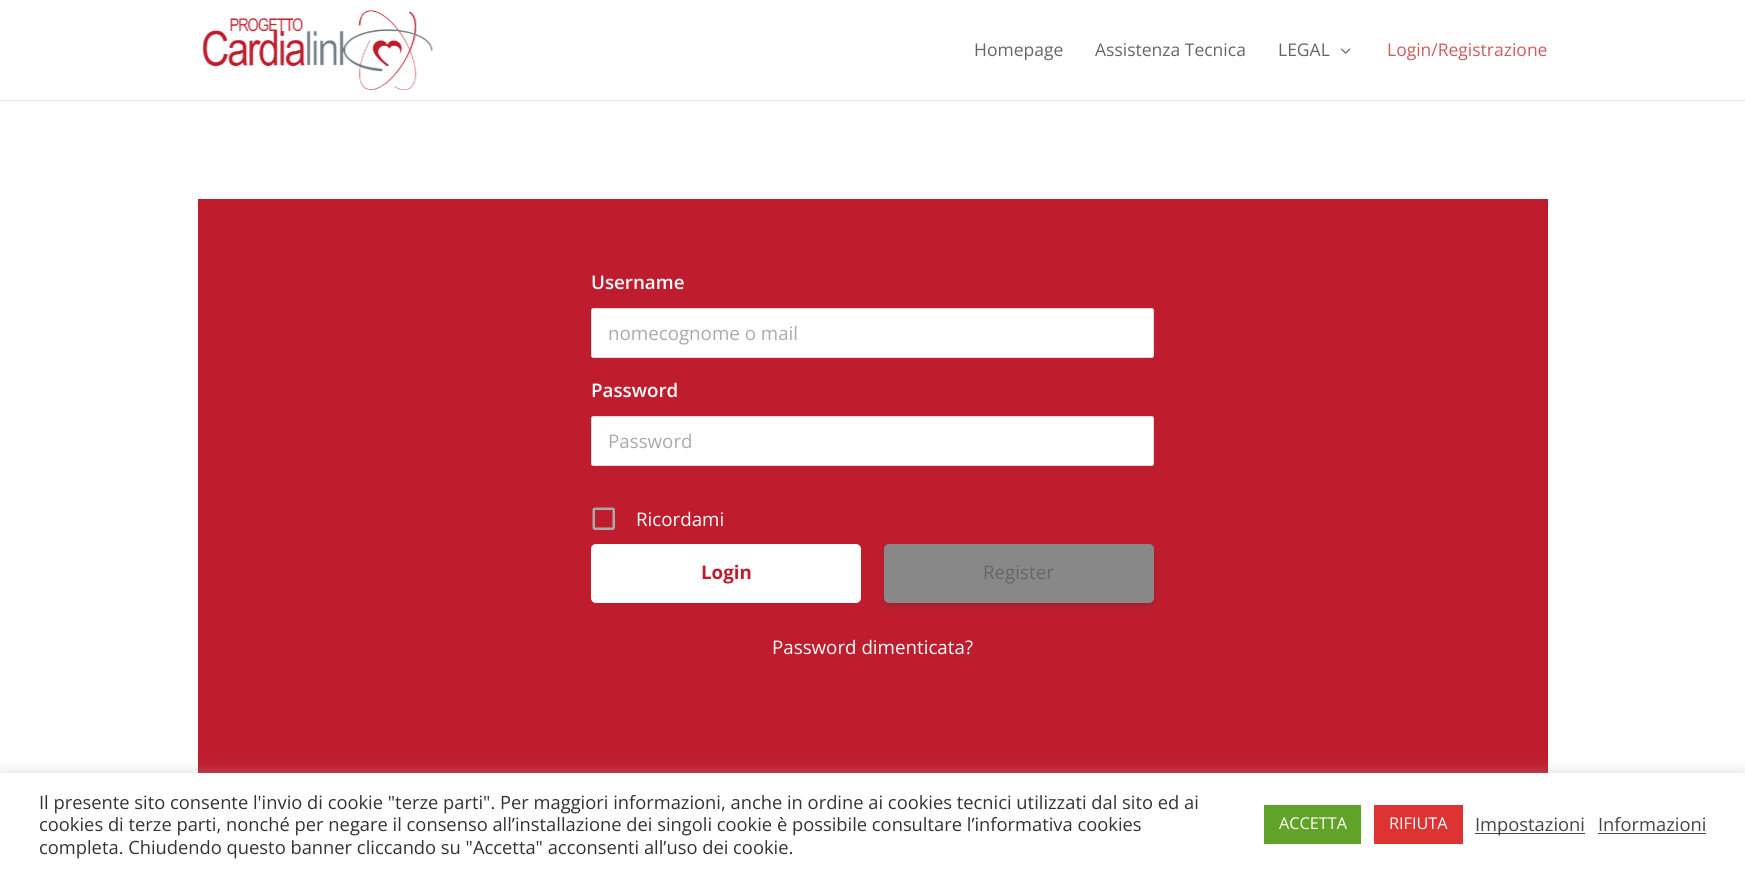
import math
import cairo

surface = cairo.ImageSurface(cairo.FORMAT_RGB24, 1745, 874)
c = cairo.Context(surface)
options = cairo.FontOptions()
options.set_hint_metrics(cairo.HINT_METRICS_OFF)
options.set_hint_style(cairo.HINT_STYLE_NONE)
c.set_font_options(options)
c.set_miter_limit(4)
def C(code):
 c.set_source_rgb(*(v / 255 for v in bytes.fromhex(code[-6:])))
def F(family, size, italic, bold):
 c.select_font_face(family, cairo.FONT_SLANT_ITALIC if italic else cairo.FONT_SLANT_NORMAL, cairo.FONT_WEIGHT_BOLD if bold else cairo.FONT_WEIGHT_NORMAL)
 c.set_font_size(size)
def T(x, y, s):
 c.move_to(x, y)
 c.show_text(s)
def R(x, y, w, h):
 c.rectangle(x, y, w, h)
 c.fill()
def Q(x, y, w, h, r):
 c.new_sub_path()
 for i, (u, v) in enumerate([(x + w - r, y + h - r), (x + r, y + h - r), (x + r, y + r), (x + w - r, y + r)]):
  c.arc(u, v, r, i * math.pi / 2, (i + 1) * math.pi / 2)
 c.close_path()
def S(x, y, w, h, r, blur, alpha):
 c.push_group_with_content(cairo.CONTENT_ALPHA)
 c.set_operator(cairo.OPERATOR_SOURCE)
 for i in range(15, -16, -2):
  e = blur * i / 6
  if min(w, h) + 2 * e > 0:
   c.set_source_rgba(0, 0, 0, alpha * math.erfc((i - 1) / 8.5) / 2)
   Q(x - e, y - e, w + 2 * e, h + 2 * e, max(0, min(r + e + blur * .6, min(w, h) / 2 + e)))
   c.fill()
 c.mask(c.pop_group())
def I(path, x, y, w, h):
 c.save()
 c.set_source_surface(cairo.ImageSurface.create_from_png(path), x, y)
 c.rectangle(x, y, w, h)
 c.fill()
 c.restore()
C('ffffff')
c.paint()
C('e6e6e6')
R(0,100,1745,1)
I('1.png',202,10,232,80)
F('Open Sans',17.5,0,0)
C('666666')
T(974,56,'Homepage')
T(1095,56,'Assistenza Tecnica')
T(1278,56,'LEGAL')
I('2.png',1341,48,10,6)
C('cd5c5c')
T(1387,56,'Login/Registrazione')
C('bf1d2e')
R(198,199,1350,574)
F('Open Sans SemiBold',18.75,0,0)
C('ffffff')
T(591,289,'Username')
Q(591.5,308.5,562,49,2)
c.fill_preserve()
C('dddddd')
c.set_line_width(1)
c.stroke()
F('Open Sans',18.75,0,0)
C('aaaaaa')
T(608,340,'nomecognome o mail')
F('Open Sans SemiBold',18.75,0,0)
C('ffffff')
T(591,397,'Password')
Q(591.5,416.5,562,49,2)
c.fill_preserve()
C('dddddd')
c.stroke()
F('Open Sans',18.75,0,0)
C('aaaaaa')
T(608,448,'Password')
I('3.png',592,507,23,23)
C('ffffff')
T(636,526,'Ricordami')
Q(591,544,270,59,5)
c.fill()
F('Open Sans',18.75,0,1)
C('bf1d2e')
T(701,579,'Login')
C('000000')
S(884,545,270,59,5,2,.08)
C('32325d')
S(884,549,270,59,5,4,.11)
C('888888')
Q(884,544,270,59,5)
c.fill()
F('Open Sans',18.75,0,0)
C('666666')
T(983,579,'Register')
C('ffffff')
T(772,654,'Password dimenticata?')
C('acabab')
S(0,771,1745,103,0,6,.3)
C('ffffff')
R(0,773,1745,101)
F('Open Sans',18.33,0,0)
C('333333')
T(39,809,'Il presente sito consente l\'invio di cookie "terze parti". Per maggiori informazioni, anche in ordine ai cookies tecnici utilizzati dal sito ed ai')
T(39,831,'cookies di terze parti, nonché per negare il consenso all’installazione dei singoli cookie è possibile consultare l’informativa cookies')
T(39,854,'completa. Chiudendo questo banner cliccando su "Accetta" acconsenti all’uso dei cookie.')
C('61a229')
R(1264,805,97,39)
F('Open Sans',16.25,0,0)
C('ffffff')
T(1279,829,'ACCETTA')
C('dd3333')
R(1374,805,89,39)
C('ffffff')
T(1389,829,'RIFIUTA')
C('444444')
R(1475,833,110,1)
F('Open Sans',18.33,0,0)
T(1475,831,'Impostazioni')
T(1598,831,'Informazioni')
R(1598,833,108,1)
surface.write_to_png('o.png')
